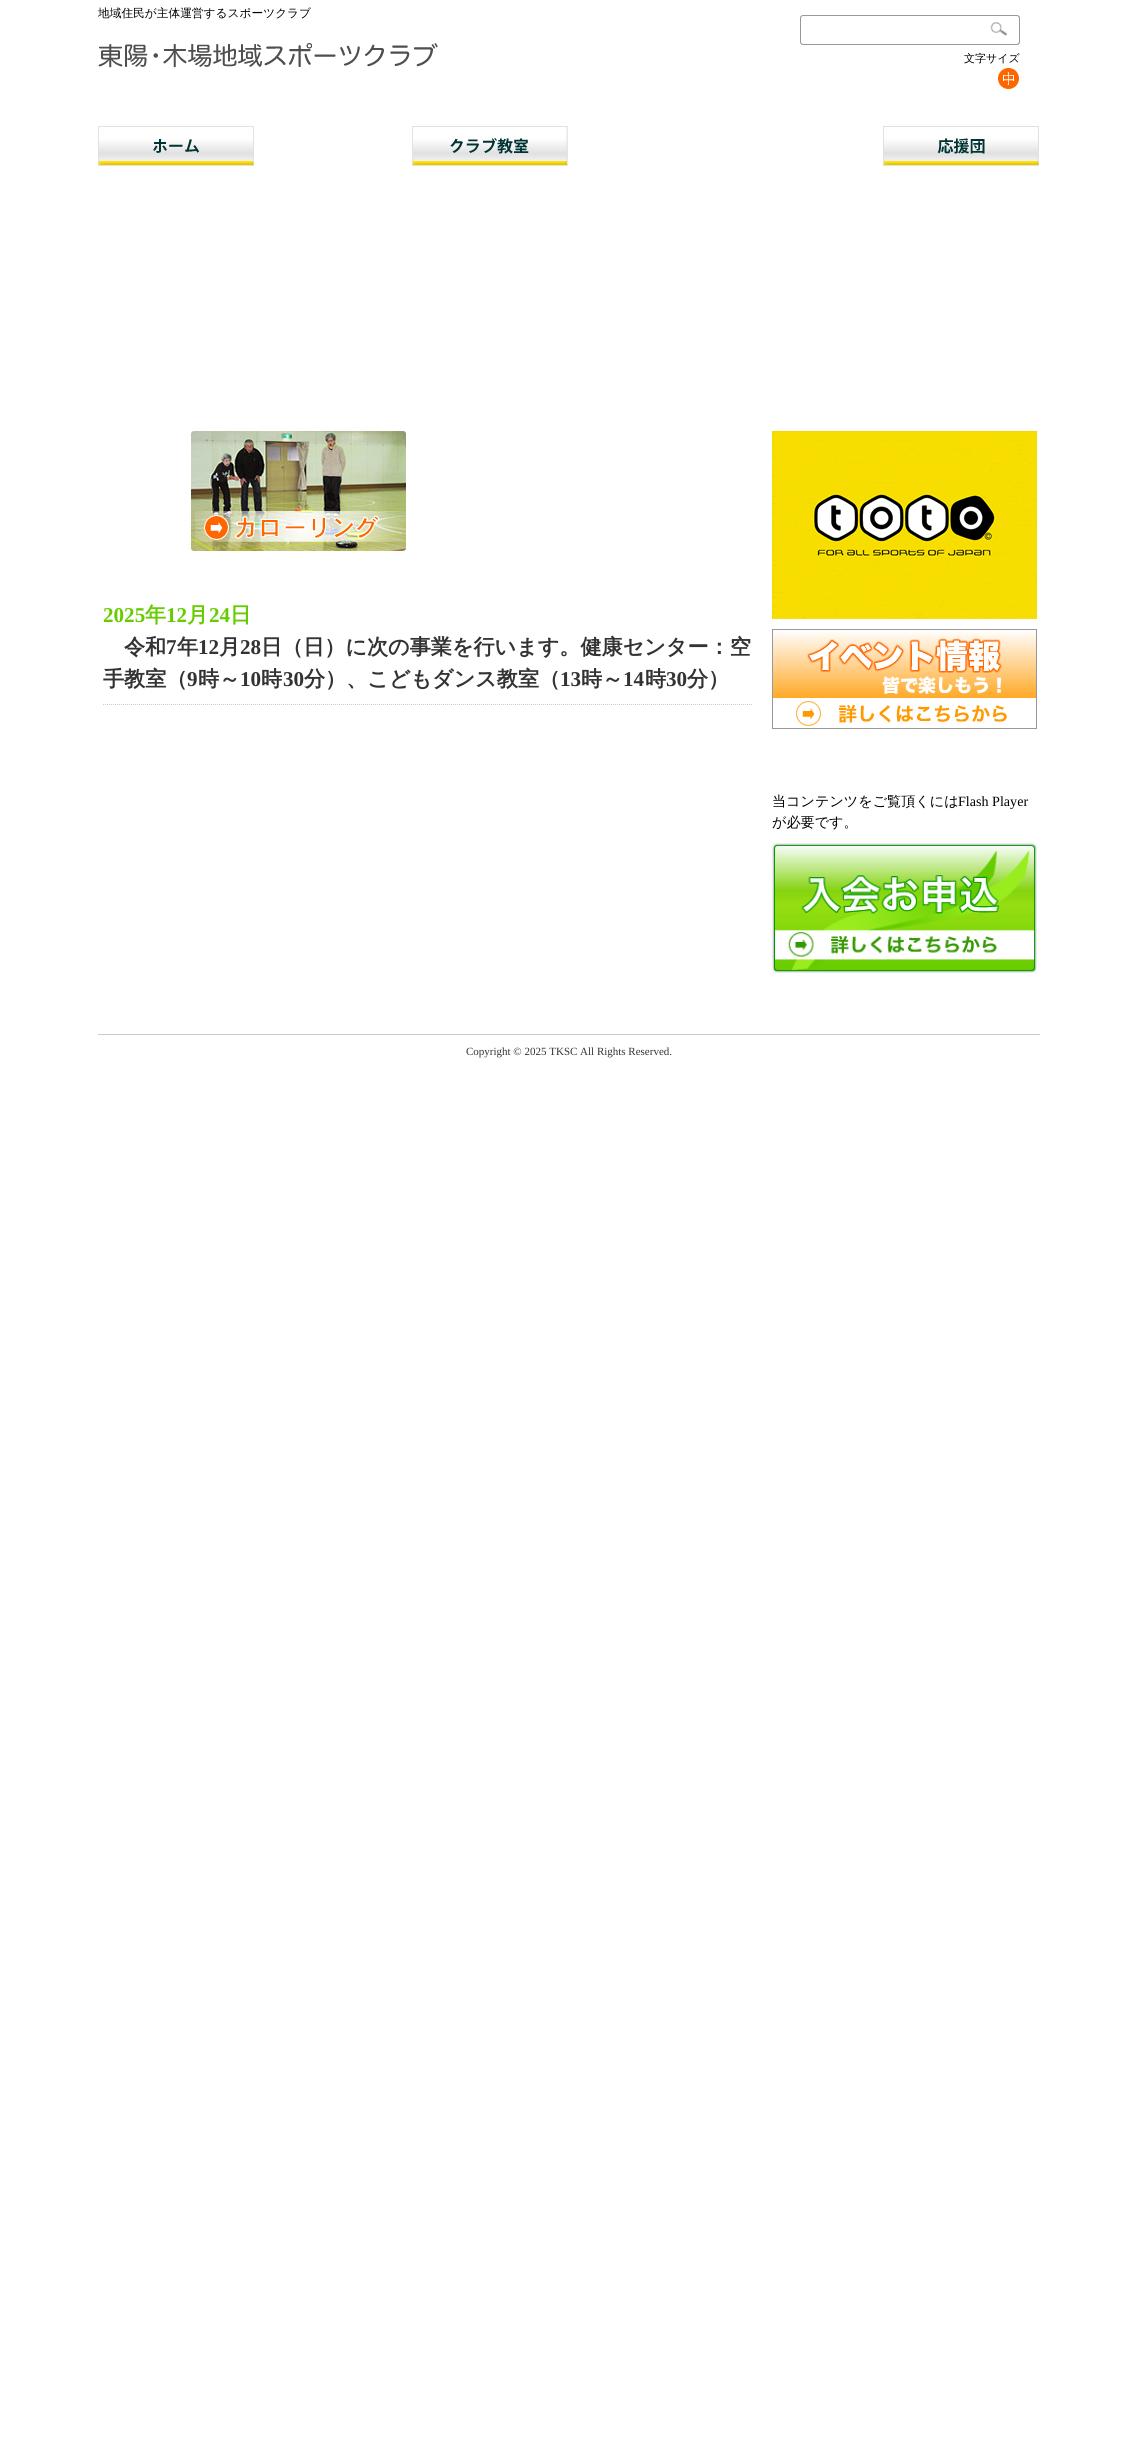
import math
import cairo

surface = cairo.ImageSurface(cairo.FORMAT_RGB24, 1138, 2458)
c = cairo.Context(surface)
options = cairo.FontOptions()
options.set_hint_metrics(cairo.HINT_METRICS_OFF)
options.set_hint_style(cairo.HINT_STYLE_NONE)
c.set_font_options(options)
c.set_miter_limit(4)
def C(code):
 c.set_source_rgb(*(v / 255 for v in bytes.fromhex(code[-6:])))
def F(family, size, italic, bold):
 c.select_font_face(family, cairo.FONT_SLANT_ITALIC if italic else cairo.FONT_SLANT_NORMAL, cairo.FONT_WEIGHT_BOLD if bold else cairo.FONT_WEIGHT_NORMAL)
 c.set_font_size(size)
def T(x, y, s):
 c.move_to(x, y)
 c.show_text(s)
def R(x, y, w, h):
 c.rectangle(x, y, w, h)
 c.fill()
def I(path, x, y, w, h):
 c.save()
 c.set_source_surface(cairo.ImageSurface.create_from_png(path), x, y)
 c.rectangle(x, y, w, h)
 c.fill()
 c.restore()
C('ffffff')
c.paint()
F('WenQuanYi Zen Hei Medium',11.7,0,0)
C('000000')
T(98,17,'地域住民が主体運営するスポーツクラブ')
I('1.png',800,15,220,30)
I('2.png',990,21,18,15)
I('3.png',98,43,340,25)
F('WenQuanYi Zen Hei Medium',11,0,0)
T(964,62,'文字サイズ')
I('4.png',998,68,21,21)
I('5.png',98,126,156,40)
I('6.png',412,126,156,40)
I('7.png',883,126,156,40)
I('8.png',191,431,215,120)
c.new_path()
c.move_to(103,704.5)
c.line_to(753,704.5)
C('cccccc')
c.set_line_width(1)
c.set_dash([1,1])
c.stroke()
F('Liberation Serif',21.1,0,1)
C('66cc00')
T(103,622,'2025')
F('WenQuanYi Zen Hei',21.1,0,1)
T(145,622,'年')
F('Liberation Serif',21.1,0,1)
T(166,622,'12')
F('WenQuanYi Zen Hei',21.1,0,1)
T(187,622,'月')
F('Liberation Serif',21.1,0,1)
T(209,622,'24')
F('WenQuanYi Zen Hei',21.1,0,1)
T(230,622,'日')
C('333333')
T(124,654,'令和')
F('Liberation Serif',21.1,0,1)
T(166,654,'7')
F('WenQuanYi Zen Hei',21.1,0,1)
T(177,654,'年')
F('Liberation Serif',21.1,0,1)
T(198,654,'12')
F('WenQuanYi Zen Hei',21.1,0,1)
T(219,654,'月')
F('Liberation Serif',21.1,0,1)
T(240,654,'28')
F('WenQuanYi Zen Hei',21.1,0,1)
T(261,654,'日（日）に次の事業を行います。健康センター：空')
T(103,686,'手教室（')
F('Liberation Serif',21.1,0,1)
T(187,686,'9')
F('WenQuanYi Zen Hei',21.1,0,1)
T(198,686,'時～')
F('Liberation Serif',21.1,0,1)
T(240,686,'10')
F('WenQuanYi Zen Hei',21.1,0,1)
T(261,686,'時')
F('Liberation Serif',21.1,0,1)
T(283,686,'30')
F('WenQuanYi Zen Hei',21.1,0,1)
T(304,686,'分）、こどもダンス教室（')
F('Liberation Serif',21.1,0,1)
T(560,686,'13')
F('WenQuanYi Zen Hei',21.1,0,1)
T(581,686,'時～')
F('Liberation Serif',21.1,0,1)
T(623,686,'14')
F('WenQuanYi Zen Hei',21.1,0,1)
T(645,686,'時')
F('Liberation Serif',21.1,0,1)
T(666,686,'30')
F('WenQuanYi Zen Hei',21.1,0,1)
T(687,686,'分）')
I('9.png',772,431,265,188)
I('10.png',772,629,265,100)
F('WenQuanYi Zen Hei Medium',14.1,0,0)
C('000000')
T(772,806,'当コンテンツをご覧頂くには')
F('Liberation Serif',14.1,0,0)
T(958,806,'Flash Player')
F('WenQuanYi Zen Hei Medium',14.1,0,0)
T(772,827,'が必要です。')
I('11.png',772,843,265,130)
C('cccccc')
R(98,1034,942,1)
F('Liberation Serif',11,0,0)
C('333333')
T(466,1055,'Copyright © 2025 TKSC All Rights Reserved.')
surface.write_to_png('o.png')
